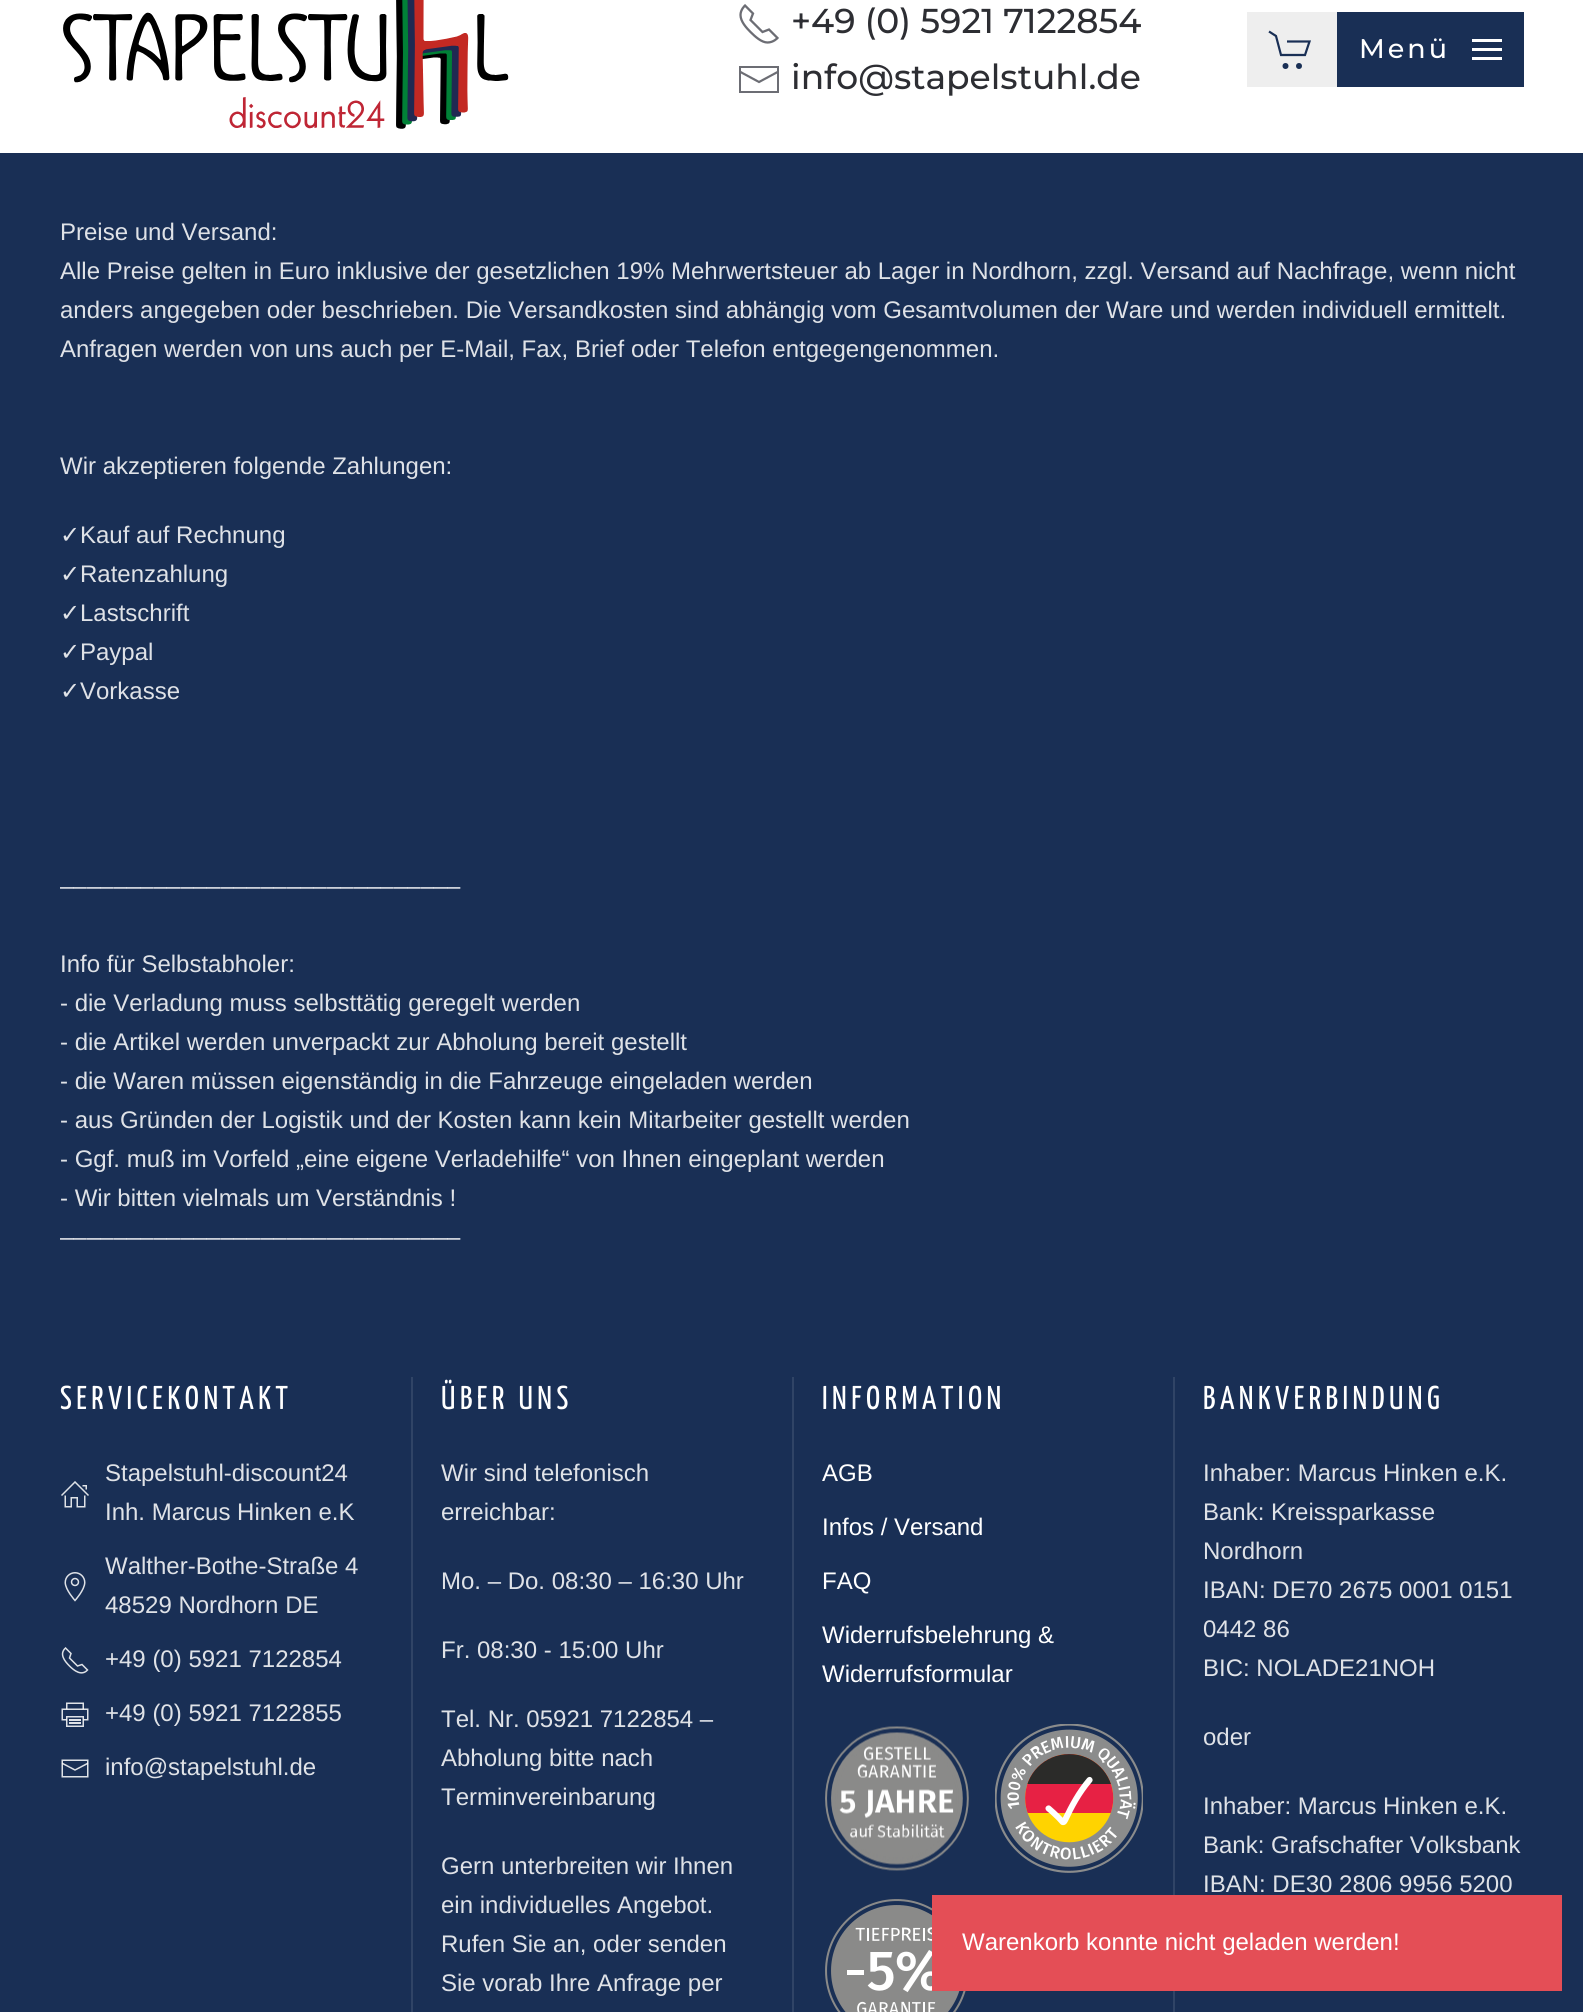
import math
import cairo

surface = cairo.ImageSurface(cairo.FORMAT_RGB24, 1583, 2012)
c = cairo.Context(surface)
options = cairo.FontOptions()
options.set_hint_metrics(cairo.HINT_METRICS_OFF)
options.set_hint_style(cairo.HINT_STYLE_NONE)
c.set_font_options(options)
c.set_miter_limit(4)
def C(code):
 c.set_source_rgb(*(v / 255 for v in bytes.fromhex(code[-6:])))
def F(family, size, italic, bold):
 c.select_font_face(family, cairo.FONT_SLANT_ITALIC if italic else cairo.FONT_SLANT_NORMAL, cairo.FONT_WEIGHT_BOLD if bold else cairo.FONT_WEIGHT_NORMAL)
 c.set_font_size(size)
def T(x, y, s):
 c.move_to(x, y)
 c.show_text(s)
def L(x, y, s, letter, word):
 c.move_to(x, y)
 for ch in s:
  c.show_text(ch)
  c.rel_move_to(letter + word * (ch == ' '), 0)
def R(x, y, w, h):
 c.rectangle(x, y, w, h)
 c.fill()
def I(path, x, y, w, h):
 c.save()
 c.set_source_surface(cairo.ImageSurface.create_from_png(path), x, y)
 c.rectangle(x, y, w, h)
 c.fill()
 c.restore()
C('192f55')
c.paint()
C('ffffff')
R(0,0,1583,153)
I('1.png',63,0,446,129)
c.new_path()
c.move_to(750.5,32)
c.curve_to(755,36.5,761.5,42.5,767.5,42.5)
c.curve_to(773.5,42.5,777.5,38,777.5,38)
c.line_to(769,29.5)
c.line_to(762.5,32)
c.line_to(750.5,20)
c.line_to(753,13.5)
c.line_to(745,5.5)
c.curve_to(745,5.5,740.5,9.5,740.5,15)
c.curve_to(740.5,21.5,746.5,28,750.5,32)
C('6c6d74')
c.set_line_width(2.3)
c.stroke()
F('Montserrat Thin',34.5,0,0)
C('2d2e33')
T(791,33,'+49 (0) 5921 7122854')
c.new_path()
c.move_to(739.5,71.5)
c.line_to(759,82)
c.line_to(778.5,71.5)
C('6c6d74')
c.set_line_width(2.2)
c.stroke()
c.new_path()
c.move_to(739,66)
c.line_to(739,93)
c.line_to(779,93)
c.line_to(779,66)
c.close_path()
c.move_to(777,91)
c.line_to(741,91)
c.line_to(741,68)
c.line_to(777,68)
c.close_path()
c.fill()
C('2d2e33')
T(791,89,'info@stapelstuhl.de')
C('eeeeee')
R(1247,12,90,75)
c.new_path()
c.move_to(1269,31.5)
c.line_to(1276,36)
c.line_to(1281,55)
c.line_to(1305,55)
c.line_to(1309.5,41.5)
c.line_to(1287,41.5)
C('192f55')
c.stroke()
c.arc(1285.5,66,3,0,2 * math.pi)
c.fill()
c.arc(1299,66,3,0,2 * math.pi)
c.fill()
R(1337,12,187,75)
F('Montserrat Thin',27,0,0)
C('ffffff')
L(1359,58,'Menü',3,0)
R(1472,39,30,3)
R(1472,48,30,3)
R(1472,57,30,3)
F('Liberation Sans',24,0,0)
C('dfe2e7')
T(60,240,'Preise und Versand:')
T(60,279,'Alle Preise gelten in Euro inklusive der gesetzlichen 19% Mehrwertsteuer ab Lager in Nordhorn, zzgl. Versand auf Nachfrage, wenn nicht')
T(60,318,'anders angegeben oder beschrieben. Die Versandkosten sind abhängig vom Gesamtvolumen der Ware und werden individuell ermittelt.')
T(60,357,'Anfragen werden von uns auch per E-Mail, Fax, Brief oder Telefon entgegengenommen.')
T(60,474,'Wir akzeptieren folgende Zahlungen:')
F('DejaVu Sans',24,0,0)
T(60,543,'✓')
F('Liberation Sans',24,0,0)
T(80,543,'Kauf auf Rechnung')
F('DejaVu Sans',24,0,0)
T(60,582,'✓')
F('Liberation Sans',24,0,0)
T(80,582,'Ratenzahlung')
F('DejaVu Sans',24,0,0)
T(60,621,'✓')
F('Liberation Sans',24,0,0)
T(80,621,'Lastschrift')
F('DejaVu Sans',24,0,0)
T(60,660,'✓')
F('Liberation Sans',24,0,0)
T(80,660,'Paypal')
F('DejaVu Sans',24,0,0)
T(60,699,'✓')
F('Liberation Sans',24,0,0)
T(80,699,'Vorkasse')
T(60,894,'––––––––––––––––––––––––––––––')
T(60,972,'Info für Selbstabholer:')
T(60,1011,'- die Verladung muss selbsttätig geregelt werden')
T(60,1050,'- die Artikel werden unverpackt zur Abholung bereit gestellt')
T(60,1089,'- die Waren müssen eigenständig in die Fahrzeuge eingeladen werden')
T(60,1128,'- aus Gründen der Logistik und der Kosten kann kein Mitarbeiter gestellt werden')
T(60,1167,'- Ggf. muß im Vorfeld „eine eigene Verladehilfe“ von Ihnen eingeplant werden')
T(60,1206,'- Wir bitten vielmals um Verständnis !')
T(60,1245,'––––––––––––––––––––––––––––––')
F('Yanone Kaffeesatz ExtraLight',33,0,0)
C('ffffff')
L(60,1409,'SERVICEKONTAKT',4.5,0)
I('2.png',61,1481,28,27)
F('Liberation Sans',24,0,0)
C('dfe2e7')
T(105,1481,'Stapelstuhl-discount24')
T(105,1520,'Inh. Marcus Hinken e.K')
I('3.png',64,1572,22,30)
T(105,1574,'Walther-Bothe-Straße 4')
T(105,1613,'48529 Nordhorn DE')
c.new_path()
c.move_to(69.5,1666)
c.curve_to(74,1670.5,81.5,1676.5,87.5,1670)
c.line_to(82,1664.5)
c.line_to(77.5,1666)
c.line_to(69.5,1658)
c.line_to(71,1653.5)
c.line_to(65.5,1648)
c.curve_to(59,1654,64.5,1661,69.5,1666)
c.set_line_width(1.5)
c.stroke()
T(105,1667,'+49 (0) 5921 7122854')
I('4.png',61,1702,28,25)
T(105,1721,'+49 (0) 5921 7122855')
I('5.png',61,1759,28,19)
T(105,1775,'info@stapelstuhl.de')
C('304466')
R(411,1377,2,635)
F('Yanone Kaffeesatz ExtraLight',33,0,0)
C('ffffff')
L(441,1409,'ÜBER UNS',4.5,0)
F('Liberation Sans',24,0,0)
C('dfe2e7')
T(441,1481,'Wir sind telefonisch')
T(441,1520,'erreichbar:')
T(441,1589,'Mo. – Do. 08:30 – 16:30 Uhr')
T(441,1658,'Fr. 08:30 - 15:00 Uhr')
T(441,1727,'Tel. Nr. 05921 7122854 –')
T(441,1766,'Abholung bitte nach')
T(441,1805,'Terminvereinbarung')
T(441,1874,'Gern unterbreiten wir Ihnen')
T(441,1913,'ein individuelles Angebot.')
T(441,1952,'Rufen Sie an, oder senden')
T(441,1991,'Sie vorab Ihre Anfrage per')
C('304466')
R(792,1377,2,635)
F('Yanone Kaffeesatz ExtraLight',33,0,0)
C('ffffff')
L(822,1409,'INFORMATION',4.5,0)
F('Liberation Sans',24,0,0)
T(822,1481,'AGB')
T(822,1535,'Infos / Versand')
T(822,1589,'FAQ')
T(822,1643,'Widerrufsbelehrung &')
T(822,1682,'Widerrufsformular')
I('6.png',825,1726,144,145)
I('7.png',995,1724,148,149)
I('8.png',825,1899,141,113)
C('304466')
R(1173,1377,2,635)
F('Yanone Kaffeesatz ExtraLight',33,0,0)
C('ffffff')
L(1203,1409,'BANKVERBINDUNG',4.5,0)
F('Liberation Sans',24,0,0)
C('dfe2e7')
T(1203,1481,'Inhaber: Marcus Hinken e.K.')
T(1203,1520,'Bank: Kreissparkasse')
T(1203,1559,'Nordhorn')
T(1203,1598,'IBAN: DE70 2675 0001 0151')
T(1203,1637,'0442 86')
T(1203,1676,'BIC: NOLADE21NOH')
T(1203,1745,'oder')
T(1203,1814,'Inhaber: Marcus Hinken e.K.')
T(1203,1853,'Bank: Grafschafter Volksbank')
T(1203,1892,'IBAN: DE30 2806 9956 5200')
C('e44e56')
R(932,1895,630,96)
C('ffffff')
T(962,1950,'Warenkorb konnte nicht geladen werden!')
surface.write_to_png('o.png')
